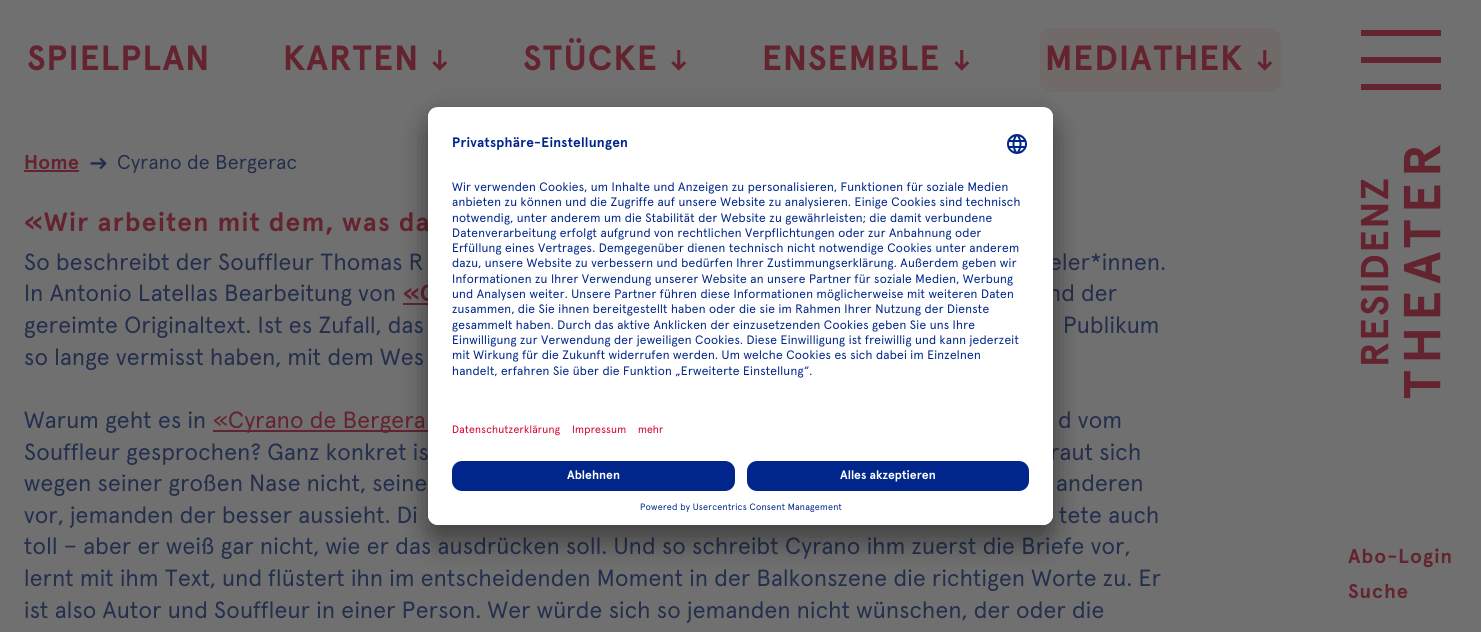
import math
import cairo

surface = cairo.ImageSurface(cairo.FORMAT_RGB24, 1481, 632)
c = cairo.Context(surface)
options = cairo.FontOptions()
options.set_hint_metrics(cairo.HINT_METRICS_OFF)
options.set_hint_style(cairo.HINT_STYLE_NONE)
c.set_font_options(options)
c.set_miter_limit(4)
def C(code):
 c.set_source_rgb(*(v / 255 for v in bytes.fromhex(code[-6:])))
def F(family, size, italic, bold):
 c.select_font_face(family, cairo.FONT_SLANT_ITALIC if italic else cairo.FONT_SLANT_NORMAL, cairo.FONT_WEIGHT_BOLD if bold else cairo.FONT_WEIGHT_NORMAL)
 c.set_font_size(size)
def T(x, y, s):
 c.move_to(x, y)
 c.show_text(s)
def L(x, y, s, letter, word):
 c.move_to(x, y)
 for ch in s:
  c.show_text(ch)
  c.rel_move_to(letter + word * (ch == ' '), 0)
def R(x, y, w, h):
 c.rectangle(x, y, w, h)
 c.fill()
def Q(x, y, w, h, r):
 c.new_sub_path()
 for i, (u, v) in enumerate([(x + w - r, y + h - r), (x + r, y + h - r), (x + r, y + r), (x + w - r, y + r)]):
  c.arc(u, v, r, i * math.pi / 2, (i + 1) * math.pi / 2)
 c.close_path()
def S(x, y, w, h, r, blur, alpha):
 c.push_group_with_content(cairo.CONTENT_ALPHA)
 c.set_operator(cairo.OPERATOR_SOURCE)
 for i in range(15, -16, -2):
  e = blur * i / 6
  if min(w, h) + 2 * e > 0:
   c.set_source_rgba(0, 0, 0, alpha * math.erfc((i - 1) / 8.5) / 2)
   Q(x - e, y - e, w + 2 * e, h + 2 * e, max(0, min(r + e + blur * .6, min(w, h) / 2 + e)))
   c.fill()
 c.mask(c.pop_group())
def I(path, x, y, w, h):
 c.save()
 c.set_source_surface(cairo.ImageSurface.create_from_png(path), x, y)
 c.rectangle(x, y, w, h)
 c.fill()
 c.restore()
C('707070')
c.paint()
C('64242f')
R(1361,57,80,6)
R(1361,30,80,6)
R(1361,84,80,6)
F('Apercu',35,0,1)
L(27,70,'SPIELPLAN',1,0)
L(283,70,'KARTEN',1,0)
I('1.png',432,50,16,21)
L(523,70,'STÜCKE',1,0)
I('1.png',671,50,16,21)
L(762,70,'ENSEMBLE',1,0)
I('1.png',954,50,16,21)
C('706b68')
Q(1040,28,241,64,10)
c.fill()
C('64242f')
L(1045,70,'MEDIATHEK',1,0)
I('2.png',1257,50,16,21)
F('Apercu',20,0,1)
L(1348,563,'Abo-Login',1,0)
L(1348,598,'Suche',1,0)
I('3.png',1360,145,81,254)
L(24,169,'Home',.23,0)
R(24,170,55,2)
I('4.png',90,157,17,13)
F('Apercu',20,0,0)
C('242f4d')
L(117,169,'Cyrano de Bergerac',.23,0)
F('Apercu',26.4,0,1)
C('64242f')
L(24,231,'«Wir arbeiten mit dem, was da',1.3,0)
F('Apercu',23.4,0,0)
C('242f4d')
L(24,270,'So beschreibt der Souffleur Thomas R',.23,0)
L(1049,270,'eler*innen.',.23,0)
L(24,301,'In Antonio Latellas Bearbeitung von',.23,0)
F('Apercu',23.4,0,1)
C('64242f')
L(403,301,'«C',.23,0)
R(403,303,25,2)
F('Apercu',23.4,0,0)
C('242f4d')
L(1048,301,'nd der',.23,0)
L(24,333,'gereimte Originaltext. Ist es Zufall, das',.23,0)
L(1063,333,'Publikum',.23,0)
L(24,365,'so lange vermisst haben, mit dem Wes',.23,0)
L(24,428,'Warum geht es in',.23,0)
C('64242f')
R(213,430,215,2)
L(213,428,'«Cyrano de Bergera',.23,0)
C('242f4d')
L(1058,428,'d vom',.23,0)
L(24,460,'Souffleur gesprochen? Ganz konkret is',.23,0)
L(1050,460,'raut sich',.23,0)
L(24,491,'wegen seiner großen Nase nicht, seine',.23,0)
L(1056,491,'anderen',.23,0)
L(24,523,'vor, jemanden der besser aussieht. Di',.23,0)
L(1059,523,'tete auch',.23,0)
L(24,554,'toll – aber er weiß gar nicht, wie er das ausdrücken soll. Und so schreibt Cyrano ihm zuerst die Briefe vor,',.23,0)
L(24,586,'lernt mit ihm Text, und flüstert ihn im entscheidenden Moment in der Balkonszene die richtigen Worte zu. Er',.23,0)
L(24,618,'ist also Autor und Souffleur in einer Person. Wer würde sich so jemanden nicht wünschen, der oder die',.23,0)
C('000000')
S(428,127,625,418,10,14,.3)
S(428,112,625,418,10,13,.22)
C('ffffff')
Q(428,107,625,418,10)
c.fill()
c.save()
Q(428,107,625,418,10)
c.clip()
c.new_path()
c.move_to(438,107)
c.line_to(1043,107)
c.curve_to(1048.5,107,1053,111.5,1053,117)
c.line_to(1053,453)
c.line_to(428,453)
c.line_to(428,117)
c.curve_to(428,111.5,432.5,107,438,107)
c.close_path()
c.clip()
R(428,108,625,345)
c.restore()
F('Apercu',13.75,0,1)
C('00268b')
L(452,147,'Privatsphäre-Einstellungen',.23,0)
I('5.png',1007,134,20,20)
F('Apercu',12.25,0,0)
L(452,191,'Wir verwenden Cookies, um Inhalte und Anzeigen zu personalisieren, Funktionen für soziale Medien',.23,0)
L(452,206,'anbieten zu können und die Zugriffe auf unsere Website zu analysieren. Einige Cookies sind technisch',.23,0)
L(452,222,'notwendig, unter anderem um die Stabilität der Website zu gewährleisten; die damit verbundene',.23,0)
L(452,237,'Datenverarbeitung erfolgt aufgrund von rechtlichen Verpflichtungen oder zur Anbahnung oder',.23,0)
L(452,252,'Erfüllung eines Vertrages. Demgegenüber dienen technisch nicht notwendige Cookies unter anderem',.23,0)
L(452,267,'dazu, unsere Website zu verbessern und bedürfen Ihrer Zustimmungserklärung. Außerdem geben wir',.23,0)
L(452,283,'Informationen zu Ihrer Verwendung unserer Website an unsere Partner für soziale Medien, Werbung',.23,0)
L(452,298,'und Analysen weiter. Unsere Partner führen diese Informationen möglicherweise mit weiteren Daten',.23,0)
L(452,313,'zusammen, die Sie ihnen bereitgestellt haben oder die sie im Rahmen Ihrer Nutzung der Dienste',.23,0)
L(452,329,'gesammelt haben. Durch das aktive Anklicken der einzusetzenden Cookies geben Sie uns Ihre',.23,0)
L(452,344,'Einwilligung zur Verwendung der jeweiligen Cookies. Diese Einwilligung ist freiwillig und kann jederzeit',.23,0)
L(452,359,'mit Wirkung für die Zukunft widerrufen werden. Um welche Cookies es sich dabei im Einzelnen',.23,0)
L(452,375,'handelt, erfahren Sie über die Funktion „Erweiterte Einstellung“.',.23,0)
F('Apercu',10.75,0,0)
C('d60027')
L(452,433,'Datenschutzerklärung',.23,0)
L(572,433,'Impressum',.23,0)
T(638,433,'mehr')
C('ffffff')
c.new_path()
c.move_to(428,453)
c.line_to(1053,453)
c.line_to(1053,515)
c.curve_to(1053,520.5,1048.5,525,1043,525)
c.line_to(438,525)
c.curve_to(432.5,525,428,520.5,428,515)
c.close_path()
c.fill()
C('00268b')
Q(452,461,283,30,10)
c.fill()
F('Apercu',12.25,0,1)
C('ffffff')
T(567,479,'Ablehnen')
C('00268b')
Q(747,461,282,30,10)
c.fill()
C('ffffff')
T(840,479,'Alles akzeptieren')
F('Apercu',9.2,0,0)
C('00268b')
L(640,510,'Powered by Usercentrics Consent Management',.23,0)
surface.write_to_png('o.png')
